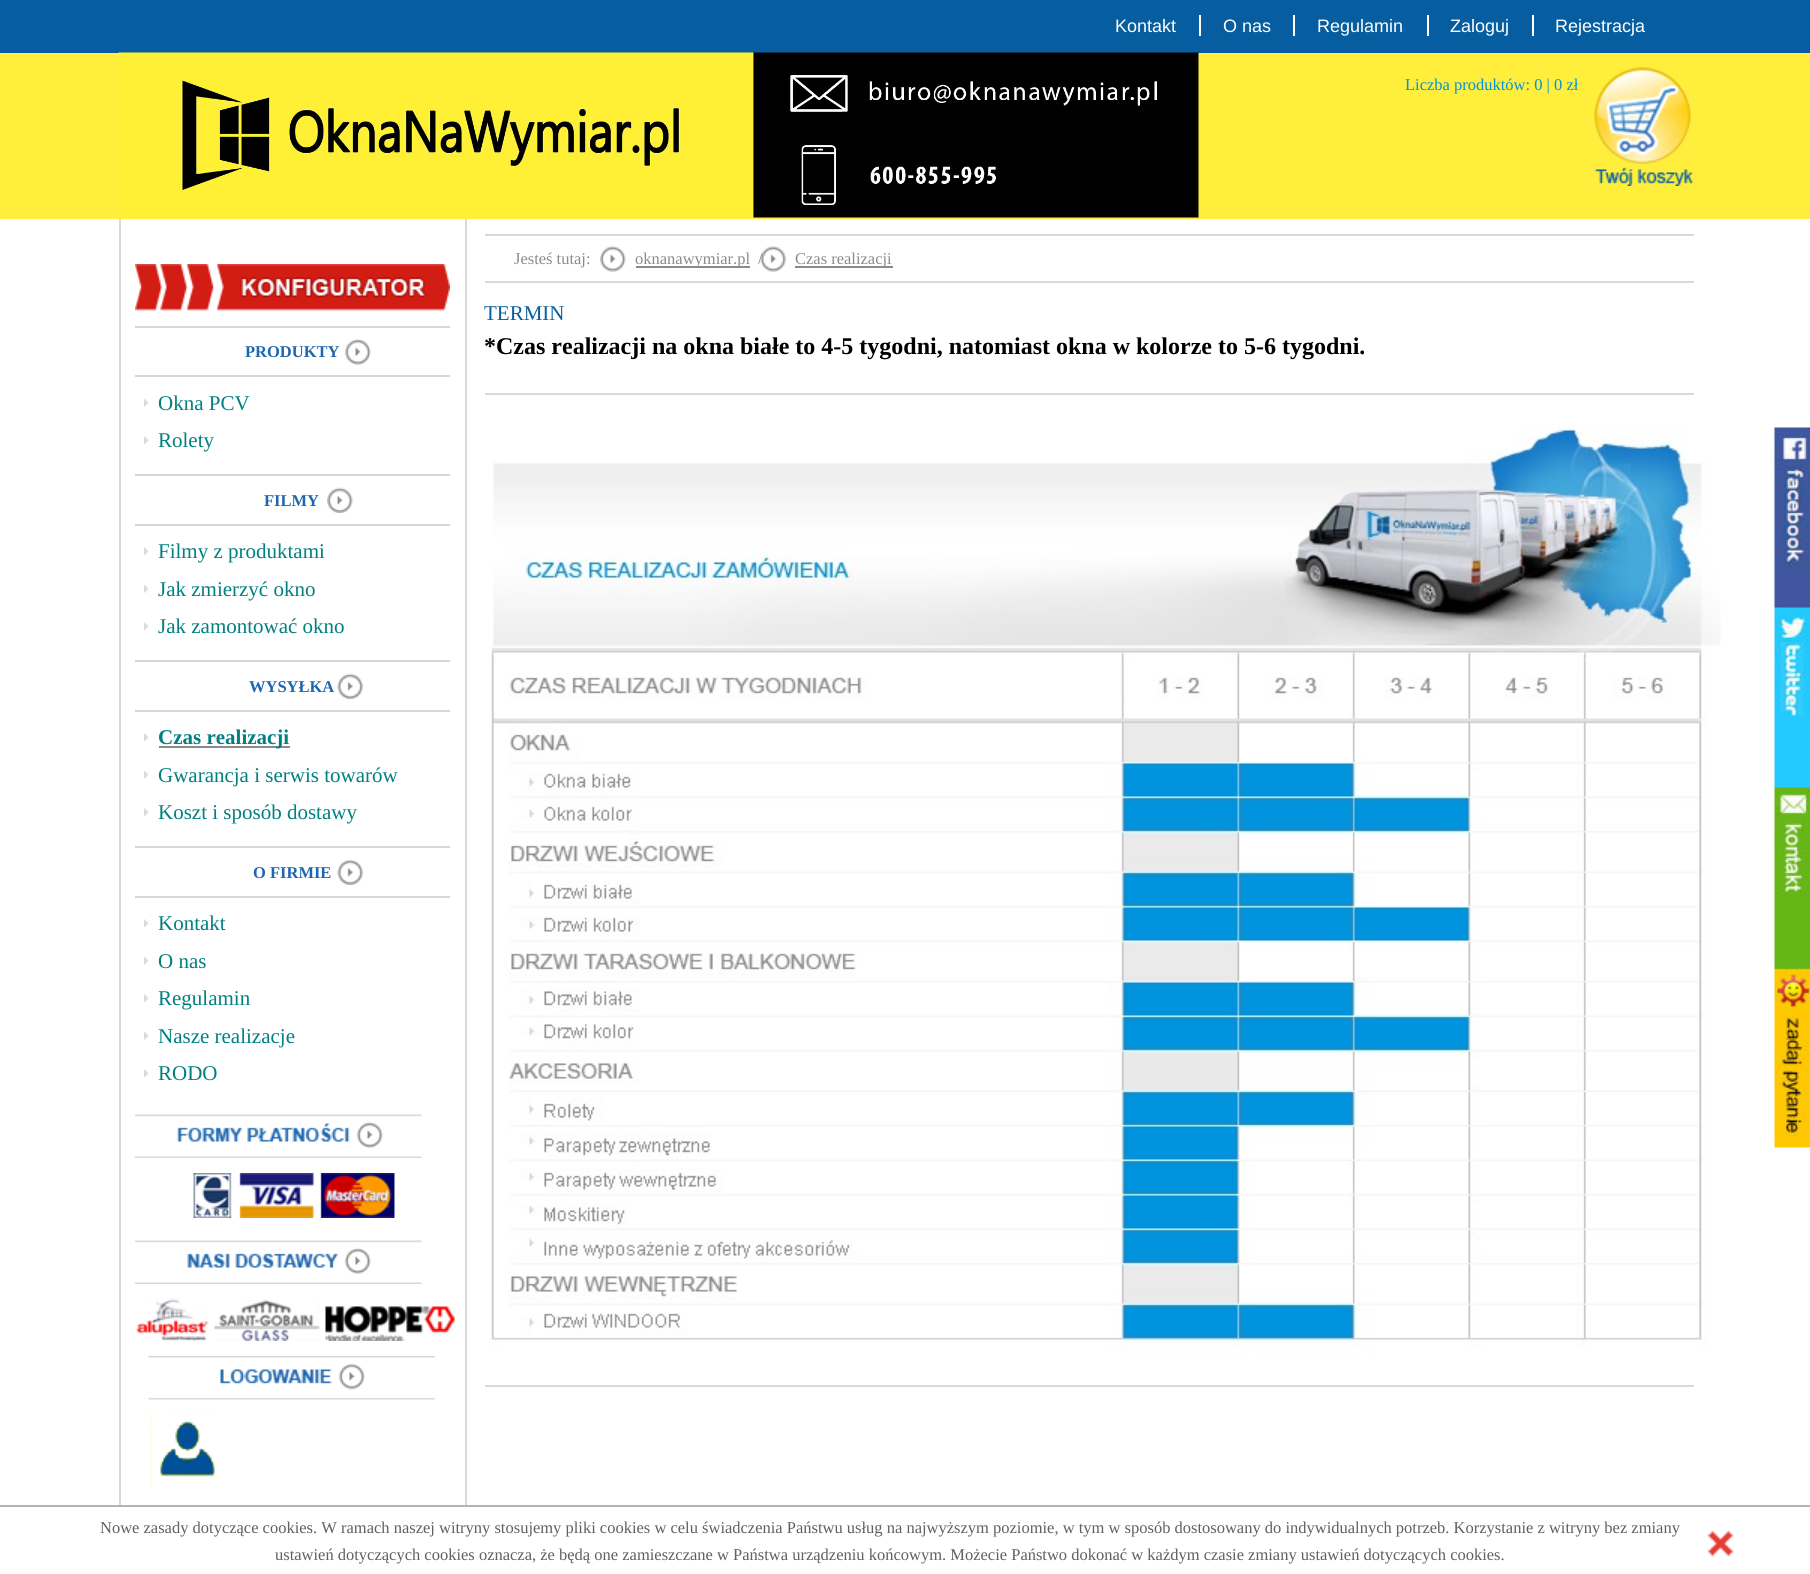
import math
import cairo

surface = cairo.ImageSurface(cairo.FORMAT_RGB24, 1810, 1574)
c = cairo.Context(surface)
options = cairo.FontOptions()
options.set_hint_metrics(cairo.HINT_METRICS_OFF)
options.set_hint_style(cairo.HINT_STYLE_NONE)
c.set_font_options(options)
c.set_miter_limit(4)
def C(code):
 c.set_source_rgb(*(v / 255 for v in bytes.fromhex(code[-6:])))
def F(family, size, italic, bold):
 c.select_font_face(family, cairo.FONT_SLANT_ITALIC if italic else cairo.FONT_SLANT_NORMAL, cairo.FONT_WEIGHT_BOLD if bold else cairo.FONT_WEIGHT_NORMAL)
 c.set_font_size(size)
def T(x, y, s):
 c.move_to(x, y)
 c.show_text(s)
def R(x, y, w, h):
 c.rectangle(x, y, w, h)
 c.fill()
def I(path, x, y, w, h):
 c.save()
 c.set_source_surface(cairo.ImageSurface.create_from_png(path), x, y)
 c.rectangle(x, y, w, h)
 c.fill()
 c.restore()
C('ffffff')
c.paint()
C('065ea0')
R(0,0,1810,53)
F('Liberation Sans',18,0,0)
C('ffffff')
T(1115,32,'Kontakt')
R(1199,15,2,21)
T(1223,32,'O nas')
R(1293,15,2,21)
T(1317,32,'Regulamin')
R(1427,15,2,21)
T(1450,32,'Zaloguj')
R(1532,15,2,21)
T(1555,32,'Rejestracja')
C('ffee3c')
R(0,53,1810,166)
I('1.png',118,52,1081,166)
F('Liberation Serif',16.5,0,0)
C('0093dd')
T(1405,90,'Liczba produktów: 0 | 0 zł')
I('2.png',1594,67,100,119)
C('d9d9d9')
R(485,234,1209,2)
R(485,281,1209,2)
C('8a8a8a')
T(514,264,'Jesteś tutaj:')
I('3.png',600,246,26,26)
R(636,266,114,2)
T(635,264,'oknanawymiar.pl')
I('4.png',760,246,26,26)
T(758,264,'/')
R(795,266,98,2)
T(795,264,'Czas realizacji')
C('d9d9d9')
R(485,393,1209,2)
F('Liberation Serif',21,0,0)
C('065ea0')
T(484,320,'TERMIN')
F('Liberation Serif',24,0,1)
C('000000')
T(484,354,'*Czas realizacji na okna białe to 4-5 tygodni, natomiast okna w kolorze to 5-6 tygodni.')
C('d9d9d9')
R(485,1385,1209,2)
I('5.png',491,424,1230,930)
R(465,219,2,1286)
R(119,219,2,1286)
I('6.png',135,264,315,47)
C('d7d7d7')
R(135,326,315,2)
R(135,375,315,2)
I('3.png',345,339,26,26)
F('Liberation Serif',16.5,0,1)
C('1e67af')
T(245,357,'PRODUKTY')
I('7.png',144,399,5,8)
F('Liberation Serif',21,0,0)
C('008080')
T(158,410,'Okna PCV')
I('8.png',144,436,5,8)
T(158,447,'Rolety')
C('d7d7d7')
R(135,474,315,2)
R(135,524,315,2)
I('9.png',327,487,26,26)
F('Liberation Serif',16.5,0,1)
C('1e67af')
T(264,506,'FILMY')
I('8.png',144,547,5,8)
F('Liberation Serif',21,0,0)
C('008080')
T(158,558,'Filmy z produktami')
I('7.png',144,585,5,8)
T(158,596,'Jak zmierzyć okno')
I('8.png',144,622,5,8)
T(158,633,'Jak zamontować okno')
C('d7d7d7')
R(135,660,315,2)
R(135,710,315,2)
I('10.png',337,673,26,26)
F('Liberation Serif',16.5,0,1)
C('1e67af')
T(249,692,'WYSYŁKA')
I('8.png',144,733,5,8)
C('8a8a8a')
R(159,746,131,2)
F('Liberation Serif',21,0,1)
C('008080')
T(158,744,'Czas realizacji')
I('7.png',144,771,5,8)
F('Liberation Serif',21,0,0)
T(158,782,'Gwarancja i serwis towarów')
I('8.png',144,808,5,8)
T(158,819,'Koszt i sposób dostawy')
C('d7d7d7')
R(135,846,315,2)
R(135,896,315,2)
I('10.png',337,859,26,26)
F('Liberation Serif',16.5,0,1)
C('1e67af')
T(253,878,'O FIRMIE')
I('8.png',144,919,5,8)
F('Liberation Serif',21,0,0)
C('008080')
T(158,930,'Kontakt')
I('7.png',144,957,5,8)
T(158,968,'O nas')
I('8.png',144,994,5,8)
T(158,1005,'Regulamin')
I('7.png',144,1032,5,8)
T(158,1043,'Nasze realizacje')
I('8.png',144,1069,5,8)
T(158,1080,'RODO')
I('11.png',135,1114,287,44)
I('12.png',193,1173,202,45)
I('13.png',135,1240,287,44)
I('14.png',136,1299,319,42)
I('15.png',148,1356,287,44)
I('16.png',150,1414,65,74)
I('17.png',1774,427,36,721)
C('b3b3b3')
R(0,1505,1810,2)
F('Liberation Serif',16.5,0,0)
C('5f5f64')
T(100,1533,'Nowe zasady dotyczące cookies. W ramach naszej witryny stosujemy pliki cookies w celu świadczenia Państwu usług na najwyższym poziomie, w tym w sposób dostosowany do indywidualnych potrzeb. Korzystanie z witryny bez zmiany')
I('18.png',1707,1530,28,28)
T(275,1560,'ustawień dotyczących cookies oznacza, że będą one zamieszczane w Państwa urządzeniu końcowym. Możecie Państwo dokonać w każdym czasie zmiany ustawień dotyczących cookies.')
surface.write_to_png('o.png')
